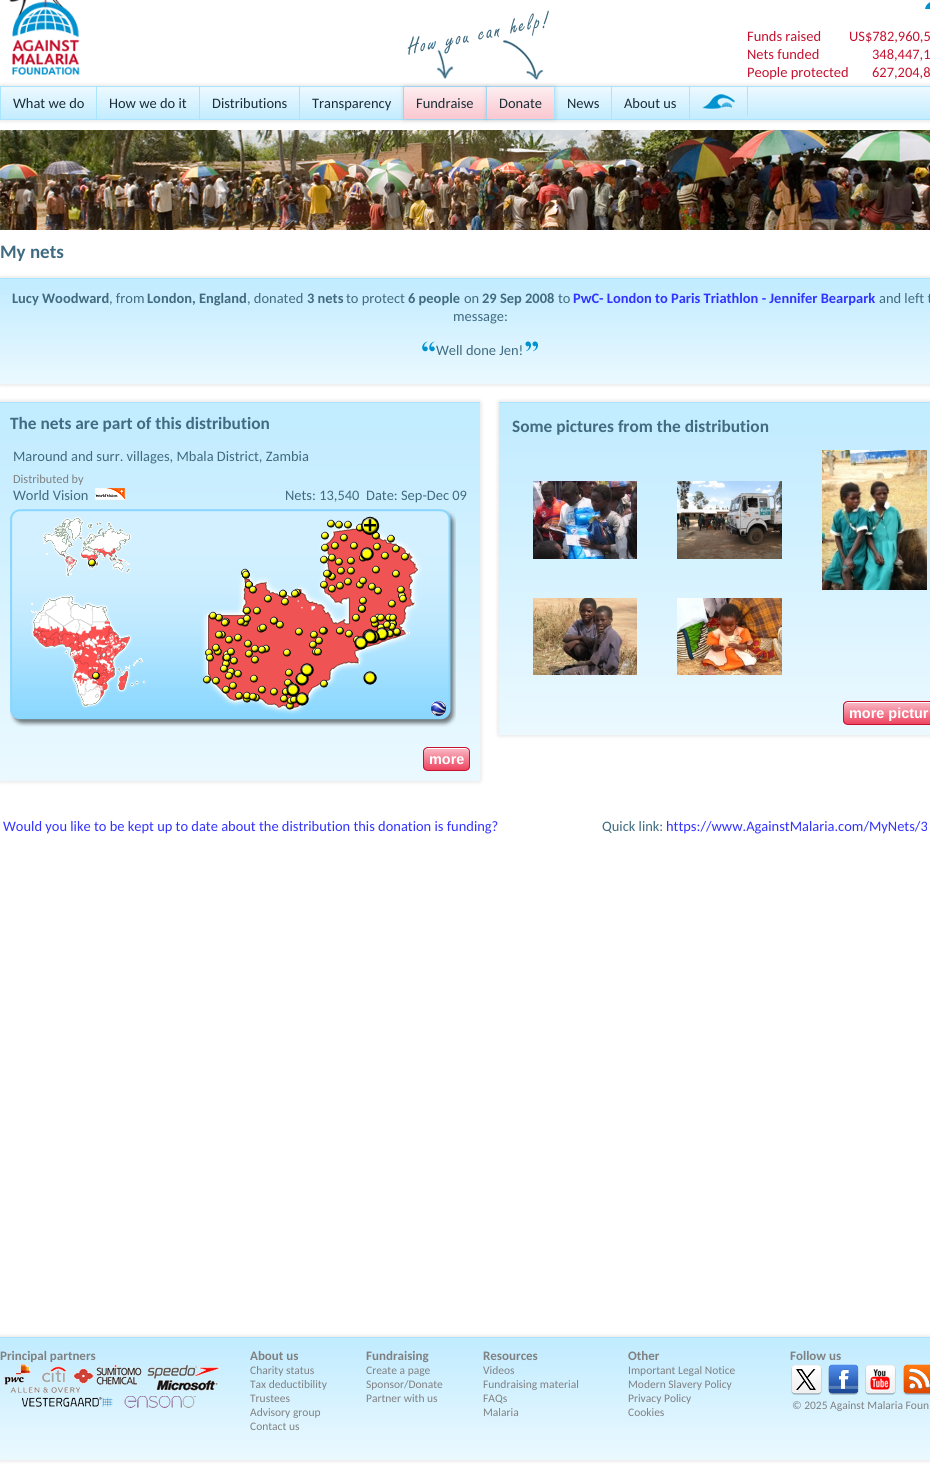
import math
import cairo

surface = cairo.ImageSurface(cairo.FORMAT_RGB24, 930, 1480)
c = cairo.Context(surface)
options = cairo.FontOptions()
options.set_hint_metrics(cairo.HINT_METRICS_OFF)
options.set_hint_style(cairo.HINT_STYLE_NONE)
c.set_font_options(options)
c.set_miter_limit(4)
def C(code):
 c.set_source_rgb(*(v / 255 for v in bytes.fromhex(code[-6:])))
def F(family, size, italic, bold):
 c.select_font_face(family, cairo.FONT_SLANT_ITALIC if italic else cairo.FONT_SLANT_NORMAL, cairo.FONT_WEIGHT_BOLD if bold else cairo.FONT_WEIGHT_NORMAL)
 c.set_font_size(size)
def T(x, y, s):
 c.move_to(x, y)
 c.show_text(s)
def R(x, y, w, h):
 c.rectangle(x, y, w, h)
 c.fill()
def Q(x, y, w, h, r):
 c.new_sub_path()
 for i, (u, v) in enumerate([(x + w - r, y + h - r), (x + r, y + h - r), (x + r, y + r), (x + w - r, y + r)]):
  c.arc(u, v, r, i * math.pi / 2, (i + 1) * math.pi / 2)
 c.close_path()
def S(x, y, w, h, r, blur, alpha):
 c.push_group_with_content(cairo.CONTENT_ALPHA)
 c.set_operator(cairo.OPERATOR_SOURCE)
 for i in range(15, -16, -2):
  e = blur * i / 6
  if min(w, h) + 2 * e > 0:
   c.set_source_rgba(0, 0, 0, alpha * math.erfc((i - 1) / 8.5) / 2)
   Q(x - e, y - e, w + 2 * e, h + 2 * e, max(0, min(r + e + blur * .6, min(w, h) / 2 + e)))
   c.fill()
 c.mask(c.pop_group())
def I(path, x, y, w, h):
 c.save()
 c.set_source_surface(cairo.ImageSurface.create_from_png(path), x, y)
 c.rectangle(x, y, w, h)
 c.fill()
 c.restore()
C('ffffff')
c.paint()
I('1.png',9,0,71,75)
I('2.png',925,2,5,7)
F('Carlito',14.45,0,0)
C('c51230')
T(747,41,'Funds raised')
T(849,41,'US$782,960,5')
T(747,59,'Nets funded')
T(872,59,'348,447,1')
T(747,77,'People protected')
T(872,77,'627,204,8')
C('000000')
S(0,86,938,34,0,2.5,.15)
gradient = cairo.LinearGradient(1,87,1,119)
gradient.add_color_stop_rgba(.05,0.922,0.976,1,1)
gradient.add_color_stop_rgba(1,0.761,0.925,1,1)
c.set_source(gradient)
R(1,87,929,32)
c.rectangle(.5,86.5,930,33)
C('abe4ff')
c.set_line_width(1)
c.stroke()
R(403,87,1,32)
C('000000')
S(404,87,83,32,0,2.5,.15)
gradient = cairo.LinearGradient(404,87,404,119)
gradient.add_color_stop_rgba(.05,0.992,0.925,0.937,1)
gradient.add_color_stop_rgba(1,0.98,0.78,0.812,1)
c.set_source(gradient)
R(404,87,82,32)
C('abe4ff')
R(486,87,1,32)
C('000000')
S(487,87,68,32,0,2.5,.15)
I('3.png',407,10,142,70)
C('abe4ff')
R(96,87,1,32)
C('1b2d36')
T(13,108,'What we do')
C('abe4ff')
R(199,87,1,32)
C('1b2d36')
T(109,108,'How we do it')
C('abe4ff')
R(299,87,1,32)
C('1b2d36')
T(212,108,'Distributions')
T(312,108,'Transparency')
T(416,108,'Fundraise')
gradient = cairo.LinearGradient(487,87,487,119)
gradient.add_color_stop_rgba(.05,0.992,0.925,0.937,1)
gradient.add_color_stop_rgba(1,0.98,0.78,0.812,1)
c.set_source(gradient)
R(487,87,67,32)
C('abe4ff')
R(554,87,1,32)
C('1b2d36')
T(499,108,'Donate')
C('abe4ff')
R(611,87,1,32)
C('1b2d36')
T(567,108,'News')
C('abe4ff')
R(689,87,1,32)
C('1b2d36')
T(624,108,'About us')
C('abe4ff')
R(747,87,1,29)
I('4.png',702,94,33,15)
I('5.png',0,130,930,100)
F('Carlito',19,0,1)
C('406b80')
T(0,258,'My nets')
C('000000')
S(0,278,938,106,0,2.5,.15)
gradient = cairo.LinearGradient(0,279,0,384)
gradient.add_color_stop_rgba(.05,0.761,0.925,1,1)
gradient.add_color_stop_rgba(1,0.922,0.976,1,1)
c.set_source(gradient)
R(0,279,930,105)
C('abe4ff')
R(0,278,930,1)
F('Carlito',14.45,0,1)
C('406b80')
T(12,303,'Lucy Woodward')
F('Carlito',14.45,0,0)
T(109,303,', from')
F('Carlito',14.45,0,1)
T(147,303,'London, England')
F('Carlito',14.45,0,0)
T(247,303,', donated')
F('Carlito',14.45,0,1)
T(307,303,'3 nets')
F('Carlito',14.45,0,0)
T(346,303,'to protect')
F('Carlito',14.45,0,1)
T(408,303,'6 people')
F('Carlito',14.45,0,0)
T(464,303,'on')
F('Carlito',14.45,0,1)
T(482,303,'29 Sep 2008')
F('Carlito',14.45,0,0)
T(558,303,'to')
F('Carlito',14.45,0,1)
C('3333ff')
T(573,303,'PwC- London to Paris Triathlon - Jennifer Bearpark')
F('Carlito',14.45,0,0)
C('406b80')
T(879,303,'and left t')
T(453,321,'message:')
I('6.png',422,341,13,11)
T(436,355,'Well done Jen!')
I('7.png',525,341,13,11)
C('000000')
S(0,402,480,379,0,2.5,.15)
gradient = cairo.LinearGradient(0,403,0,781)
gradient.add_color_stop_rgba(.05,0.761,0.925,1,1)
gradient.add_color_stop_rgba(1,0.922,0.976,1,1)
c.set_source(gradient)
R(0,403,480,378)
C('abe4ff')
R(0,402,480,1)
F('Carlito',17.3,0,1)
C('406b80')
T(10,429,'The nets are part of this distribution')
F('Carlito',14.45,0,0)
T(13,461,'Maround and surr. villages, Mbala District, Zambia')
F('Carlito',12.25,0,0)
C('808080')
T(13,483,'Distributed by')
F('Carlito',14.45,0,0)
C('406b80')
T(13,500,'World Vision')
I('8.png',95,488,30,12)
T(285,500,'Nets: 13,540')
T(366,500,'Date: Sep-Dec 09')
I('9.png',10,509,446,218)
c.save()
Q(423,747,47,24,5)
c.clip()
gradient = cairo.LinearGradient(424,748,424,770)
gradient.add_color_stop_rgba(.05,0.973,0.706,0.753,1)
gradient.add_color_stop_rgba(1,0.933,0.267,0.38,1)
c.set_source(gradient)
R(423,748,47,22)
c.restore()
C('ffffff')
c.new_path()
c.move_to(428,749)
c.line_to(465,749)
c.curve_to(467,749,469,751,469,753)
c.curve_to(469,747,464,748,459,748)
c.line_to(434,748)
c.curve_to(429,748,424,747,424,753)
c.curve_to(424,751,426,749,428,749)
c.close_path()
c.fill()
Q(423.5,747.5,46,23,4.5)
C('c51230')
c.stroke()
F('Liberation Sans',14.45,0,1)
C('ffffff')
T(429,764,'more')
C('000000')
S(499,402,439,333,0,2.5,.15)
gradient = cairo.LinearGradient(499,403,499,735)
gradient.add_color_stop_rgba(.05,0.761,0.925,1,1)
gradient.add_color_stop_rgba(1,0.922,0.976,1,1)
c.set_source(gradient)
R(499,403,431,332)
C('abe4ff')
R(499,402,431,1)
F('Carlito',17.3,0,1)
C('406b80')
T(512,432,'Some pictures from the distribution')
I('10.png',533,481,104,78)
I('11.png',677,481,105,78)
I('12.png',822,450,105,140)
I('13.png',533,598,104,77)
I('14.png',677,598,105,77)
c.save()
Q(843,701,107,24,5)
c.clip()
gradient = cairo.LinearGradient(844,702,844,724)
gradient.add_color_stop_rgba(.05,0.973,0.706,0.753,1)
gradient.add_color_stop_rgba(1,0.933,0.267,0.38,1)
c.set_source(gradient)
R(843,702,87,22)
c.restore()
C('ffffff')
c.new_path()
c.move_to(848,703)
c.line_to(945,703)
c.curve_to(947,703,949,705,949,707)
c.curve_to(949,698,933,702,929,702)
c.line_to(864,702)
c.curve_to(860,702,844,698,844,707)
c.curve_to(844,705,846,703,848,703)
c.close_path()
c.fill()
Q(843.5,701.5,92,23,4.5)
C('c51230')
c.stroke()
F('Liberation Sans',14.45,0,1)
C('ffffff')
T(849,718,'more pictur')
F('Carlito',14.45,0,0)
C('3333ff')
T(3,831,'Would you like to be kept up to date about the distribution this donation is funding?')
C('406b80')
T(602,831,'Quick link:')
C('3333ff')
T(666,831,'https://www.AgainstMalaria.com/MyNets/3')
C('000000')
S(0,1337,930,123,0,2.5,.15)
gradient = cairo.LinearGradient(0,1338,0,1460)
gradient.add_color_stop_rgba(.05,0.761,0.925,1,1)
gradient.add_color_stop_rgba(1,0.922,0.976,1,1)
c.set_source(gradient)
R(0,1338,930,122)
C('abe4ff')
R(0,1337,930,1)
F('Carlito',13,0,1)
C('808080')
T(0,1360,'Principal partners')
T(250,1360,'About us')
T(366,1360,'Fundraising')
T(483,1360,'Resources')
T(628,1360,'Other')
T(790,1360,'Follow us')
I('15.png',4,1364,215,44)
F('Carlito',11.5,0,0)
T(250,1374,'Charity status')
T(250,1388,'Tax deductibility')
T(250,1402,'Trustees')
T(250,1416,'Advisory group')
T(250,1430,'Contact us')
T(366,1374,'Create a page')
T(366,1388,'Sponsor/Donate')
T(366,1402,'Partner with us')
T(483,1374,'Videos')
T(483,1388,'Fundraising material')
T(483,1402,'FAQs')
T(483,1416,'Malaria')
T(628,1374,'Important Legal Notice')
T(628,1388,'Modern Slavery Policy')
T(628,1402,'Privacy Policy')
T(628,1416,'Cookies')
I('16.png',791,1364,31,31)
I('17.png',828,1364,31,31)
I('18.png',865,1364,31,31)
I('19.png',903,1364,27,31)
T(792,1409,'© 2025 Against Malaria Foun')
surface.write_to_png('o.png')
